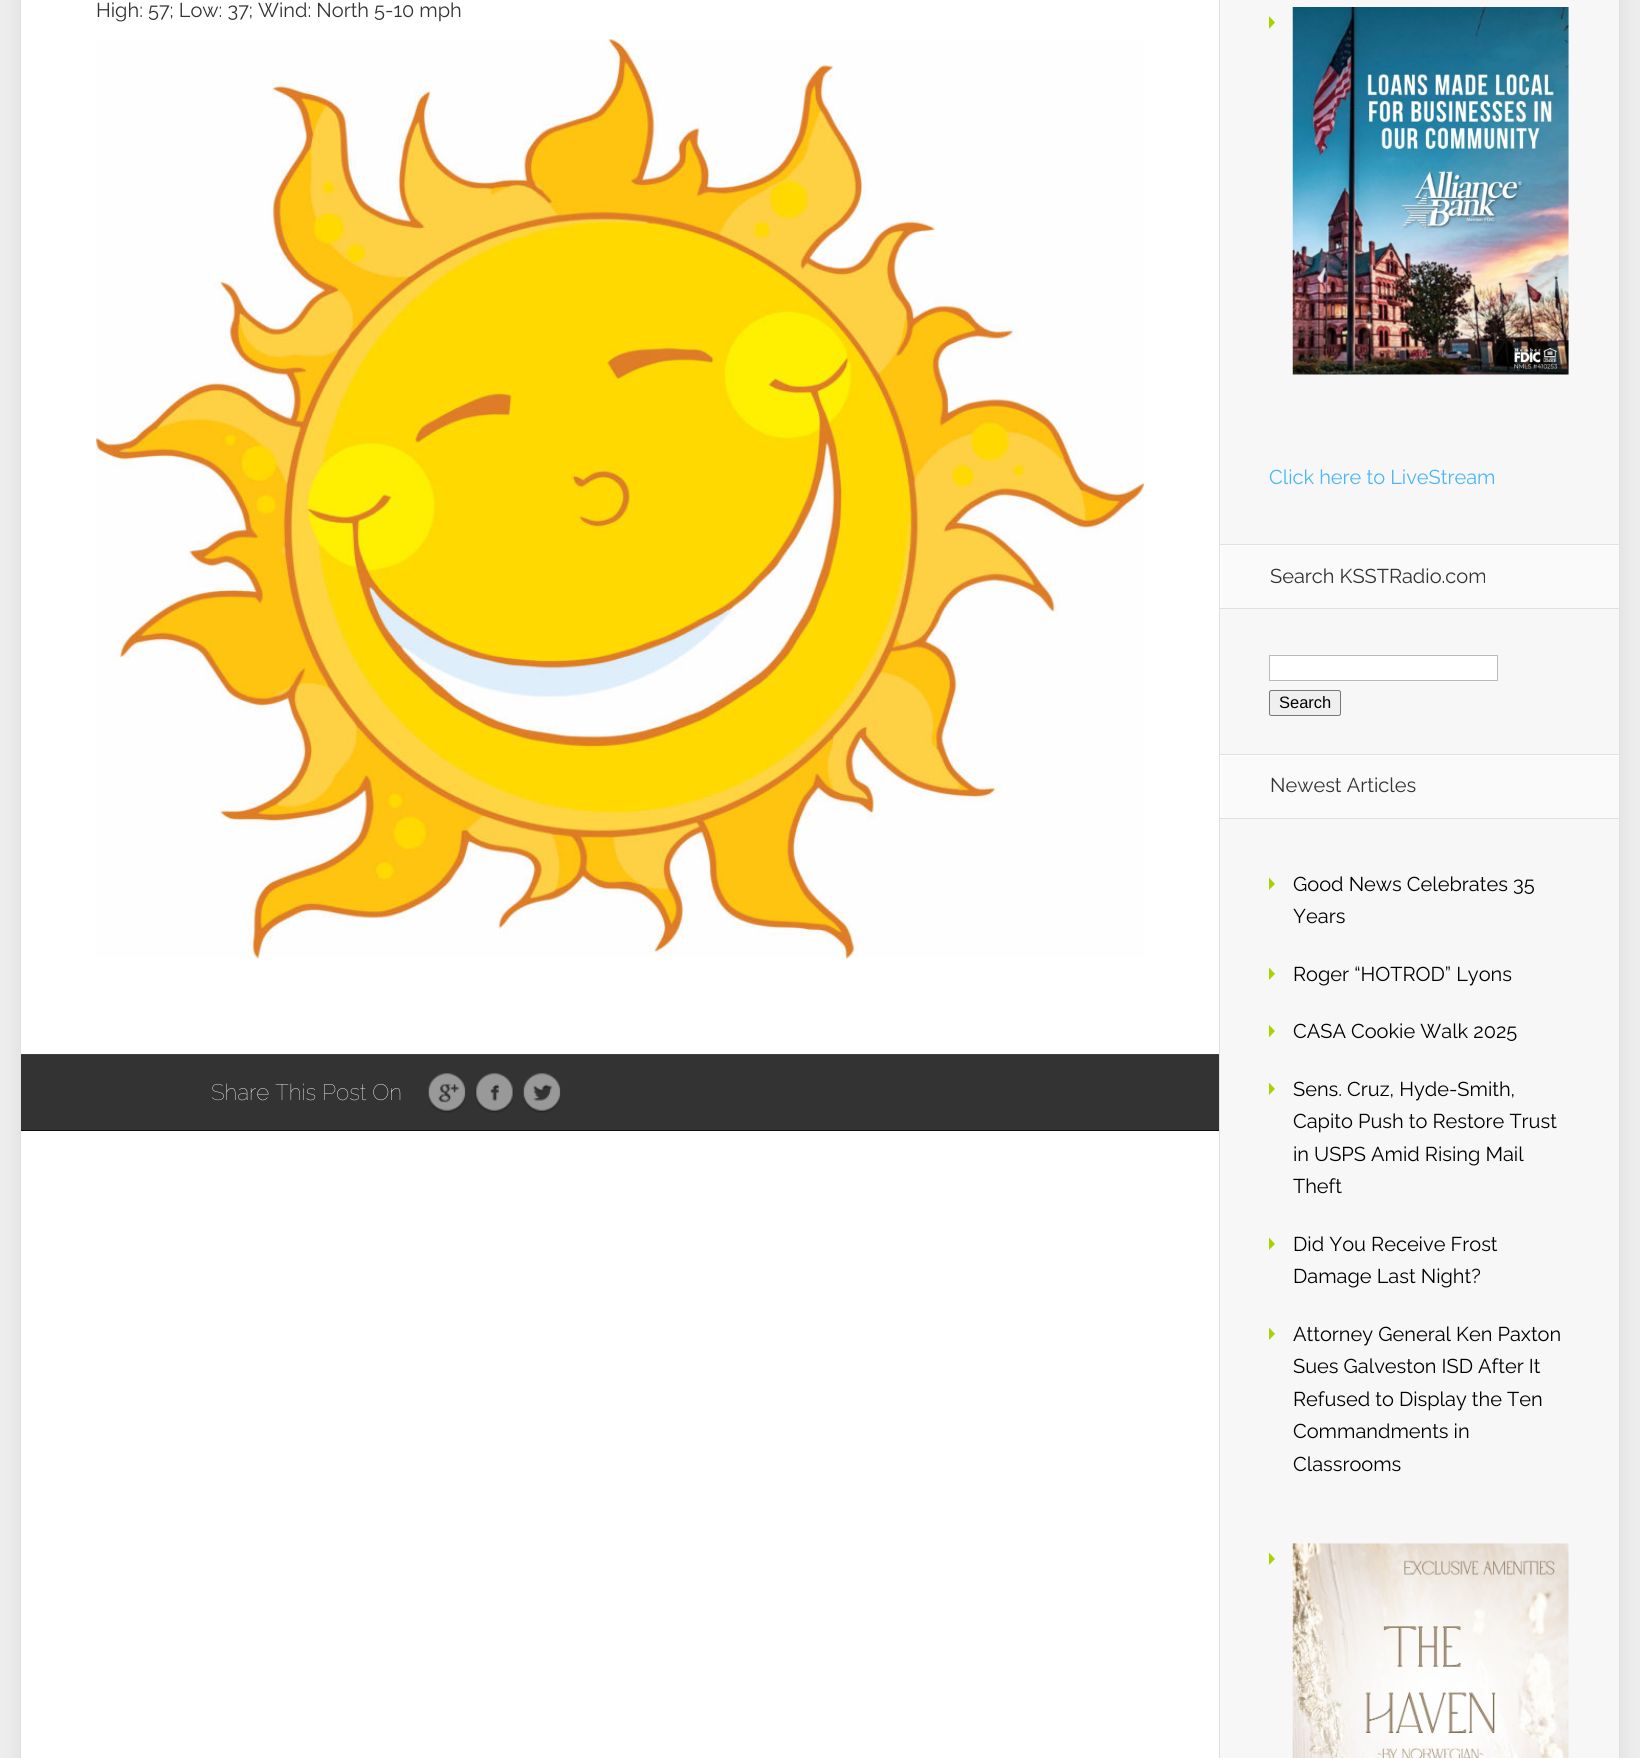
import math
import cairo

surface = cairo.ImageSurface(cairo.FORMAT_RGB24, 1640, 1758)
c = cairo.Context(surface)
options = cairo.FontOptions()
options.set_hint_metrics(cairo.HINT_METRICS_OFF)
options.set_hint_style(cairo.HINT_STYLE_NONE)
c.set_font_options(options)
c.set_miter_limit(4)
def C(code):
 c.set_source_rgb(*(v / 255 for v in bytes.fromhex(code[-6:])))
def F(family, size, italic, bold):
 c.select_font_face(family, cairo.FONT_SLANT_ITALIC if italic else cairo.FONT_SLANT_NORMAL, cairo.FONT_WEIGHT_BOLD if bold else cairo.FONT_WEIGHT_NORMAL)
 c.set_font_size(size)
def T(x, y, s):
 c.move_to(x, y)
 c.show_text(s)
def R(x, y, w, h):
 c.rectangle(x, y, w, h)
 c.fill()
def Q(x, y, w, h, r):
 c.new_sub_path()
 for i, (u, v) in enumerate([(x + w - r, y + h - r), (x + r, y + h - r), (x + r, y + r), (x + w - r, y + r)]):
  c.arc(u, v, r, i * math.pi / 2, (i + 1) * math.pi / 2)
 c.close_path()
def S(x, y, w, h, r, blur, alpha):
 c.push_group_with_content(cairo.CONTENT_ALPHA)
 c.set_operator(cairo.OPERATOR_SOURCE)
 for i in range(15, -16, -2):
  e = blur * i / 6
  if min(w, h) + 2 * e > 0:
   c.set_source_rgba(0, 0, 0, alpha * math.erfc((i - 1) / 8.5) / 2)
   Q(x - e, y - e, w + 2 * e, h + 2 * e, max(0, min(r + e + blur * .6, min(w, h) / 2 + e)))
   c.fill()
 c.mask(c.pop_group())
def I(path, x, y, w, h):
 c.save()
 c.set_source_surface(cairo.ImageSurface.create_from_png(path), x, y)
 c.rectangle(x, y, w, h)
 c.fill()
 c.restore()
C('ededed')
c.paint()
C('000000')
S(20,-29,1600,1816,0,9.5,.07)
C('ffffff')
R(21,0,1198,1758)
C('e0e0e0')
R(1619,0,1,1758)
R(20,0,1,1758)
R(1219,0,1,1758)
F('Raleway',20,0,0)
C('333333')
T(96,17,'High: 57; Low: 37; Wind: North 5-10 mph')
I('1.png',96,39,1048,920)
R(21,1055,1198,75)
C('404040')
R(21,1054,1198,1)
C('0f0f0f')
R(21,1130,1198,1)
F('Raleway Thin',22.5,0,0)
C('ffffff')
T(211,1100,'Share This Post On')
I('2.png',428,1073,38,40)
I('3.png',475,1073,39,40)
I('4.png',523,1073,38,40)
C('f7f7f7')
R(1220,0,399,1758)
C('a9d300')
c.new_path()
c.move_to(1269,29)
c.line_to(1269,16)
c.line_to(1275,22.5)
c.close_path()
c.fill()
I('5.png',1292,7,277,368)
F('Raleway',20,0,0)
C('4bb6f5')
T(1269,484,'Click here to LiveStream')
C('fafafa')
R(1221,546,398,62)
c.save()
c.rectangle(1220,545,399,63)
c.clip()
C('ffffff')
c.set_fill_rule(cairo.FILL_RULE_EVEN_ODD)
c.new_path()
c.move_to(1096,421)
c.line_to(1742,421)
c.line_to(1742,731)
c.line_to(1096,731)
c.close_path()
c.move_to(1221,546)
c.line_to(1620,546)
c.line_to(1620,609)
c.line_to(1221,609)
c.close_path()
c.fill()
c.restore()
C('e0e0e0')
R(1219,544,400,1)
R(1219,608,400,1)
C('333333')
T(1270,583,'Search KSSTRadio.com')
C('ffffff')
c.rectangle(1269.5,655.5,228,25)
c.fill_preserve()
C('bbbbbb')
c.set_line_width(1)
c.stroke()
C('efefef')
Q(1269.5,690.5,71,25,2)
c.fill_preserve()
C('767676')
c.stroke()
F('Liberation Sans',16.5,0,0)
C('000000')
T(1279,708,'Search')
C('fafafa')
R(1221,756,398,62)
c.save()
c.rectangle(1220,755,399,63)
c.clip()
C('ffffff')
c.set_fill_rule(cairo.FILL_RULE_EVEN_ODD)
c.new_path()
c.move_to(1096,631)
c.line_to(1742,631)
c.line_to(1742,941)
c.line_to(1096,941)
c.close_path()
c.move_to(1221,756)
c.line_to(1620,756)
c.line_to(1620,819)
c.line_to(1221,819)
c.close_path()
c.fill()
c.restore()
C('e0e0e0')
R(1219,754,400,1)
R(1219,818,400,1)
F('Raleway',20,0,0)
C('333333')
T(1270,792,'Newest Articles')
C('a9d300')
c.new_path()
c.move_to(1269,890)
c.line_to(1269,877.5)
c.line_to(1275,884)
c.close_path()
c.fill()
C('000000')
T(1293,891,'Good News Celebrates 35')
T(1293,923,'Years')
C('a9d300')
c.new_path()
c.move_to(1269,980)
c.line_to(1269,967.5)
c.line_to(1275,974)
c.close_path()
c.fill()
C('000000')
T(1293,981,'Roger “HOTROD” Lyons')
C('a9d300')
c.new_path()
c.move_to(1269,1037.5)
c.line_to(1269,1025)
c.line_to(1275,1031)
c.close_path()
c.fill()
C('000000')
T(1293,1038,'CASA Cookie Walk 2025')
C('a9d300')
c.new_path()
c.move_to(1269,1095)
c.line_to(1269,1082.5)
c.line_to(1275,1089)
c.close_path()
c.fill()
C('000000')
T(1293,1096,'Sens. Cruz, Hyde-Smith,')
T(1293,1128,'Capito Push to Restore Trust')
T(1293,1161,'in USPS Amid Rising Mail')
T(1293,1193,'Theft')
C('a9d300')
c.new_path()
c.move_to(1269,1250)
c.line_to(1269,1237.5)
c.line_to(1275,1244)
c.close_path()
c.fill()
C('000000')
T(1293,1251,'Did You Receive Frost')
T(1293,1283,'Damage Last Night?')
C('a9d300')
c.new_path()
c.move_to(1269,1340)
c.line_to(1269,1327.5)
c.line_to(1275,1334)
c.close_path()
c.fill()
C('000000')
T(1293,1341,'Attorney General Ken Paxton')
T(1293,1373,'Sues Galveston ISD After It')
T(1293,1406,'Refused to Display the Ten')
T(1293,1438,'Commandments in')
T(1293,1471,'Classrooms')
C('a9d300')
c.new_path()
c.move_to(1269,1565)
c.line_to(1269,1552.5)
c.line_to(1275,1559)
c.close_path()
c.fill()
I('6.png',1292,1543,277,215)
surface.write_to_png('o.png')
